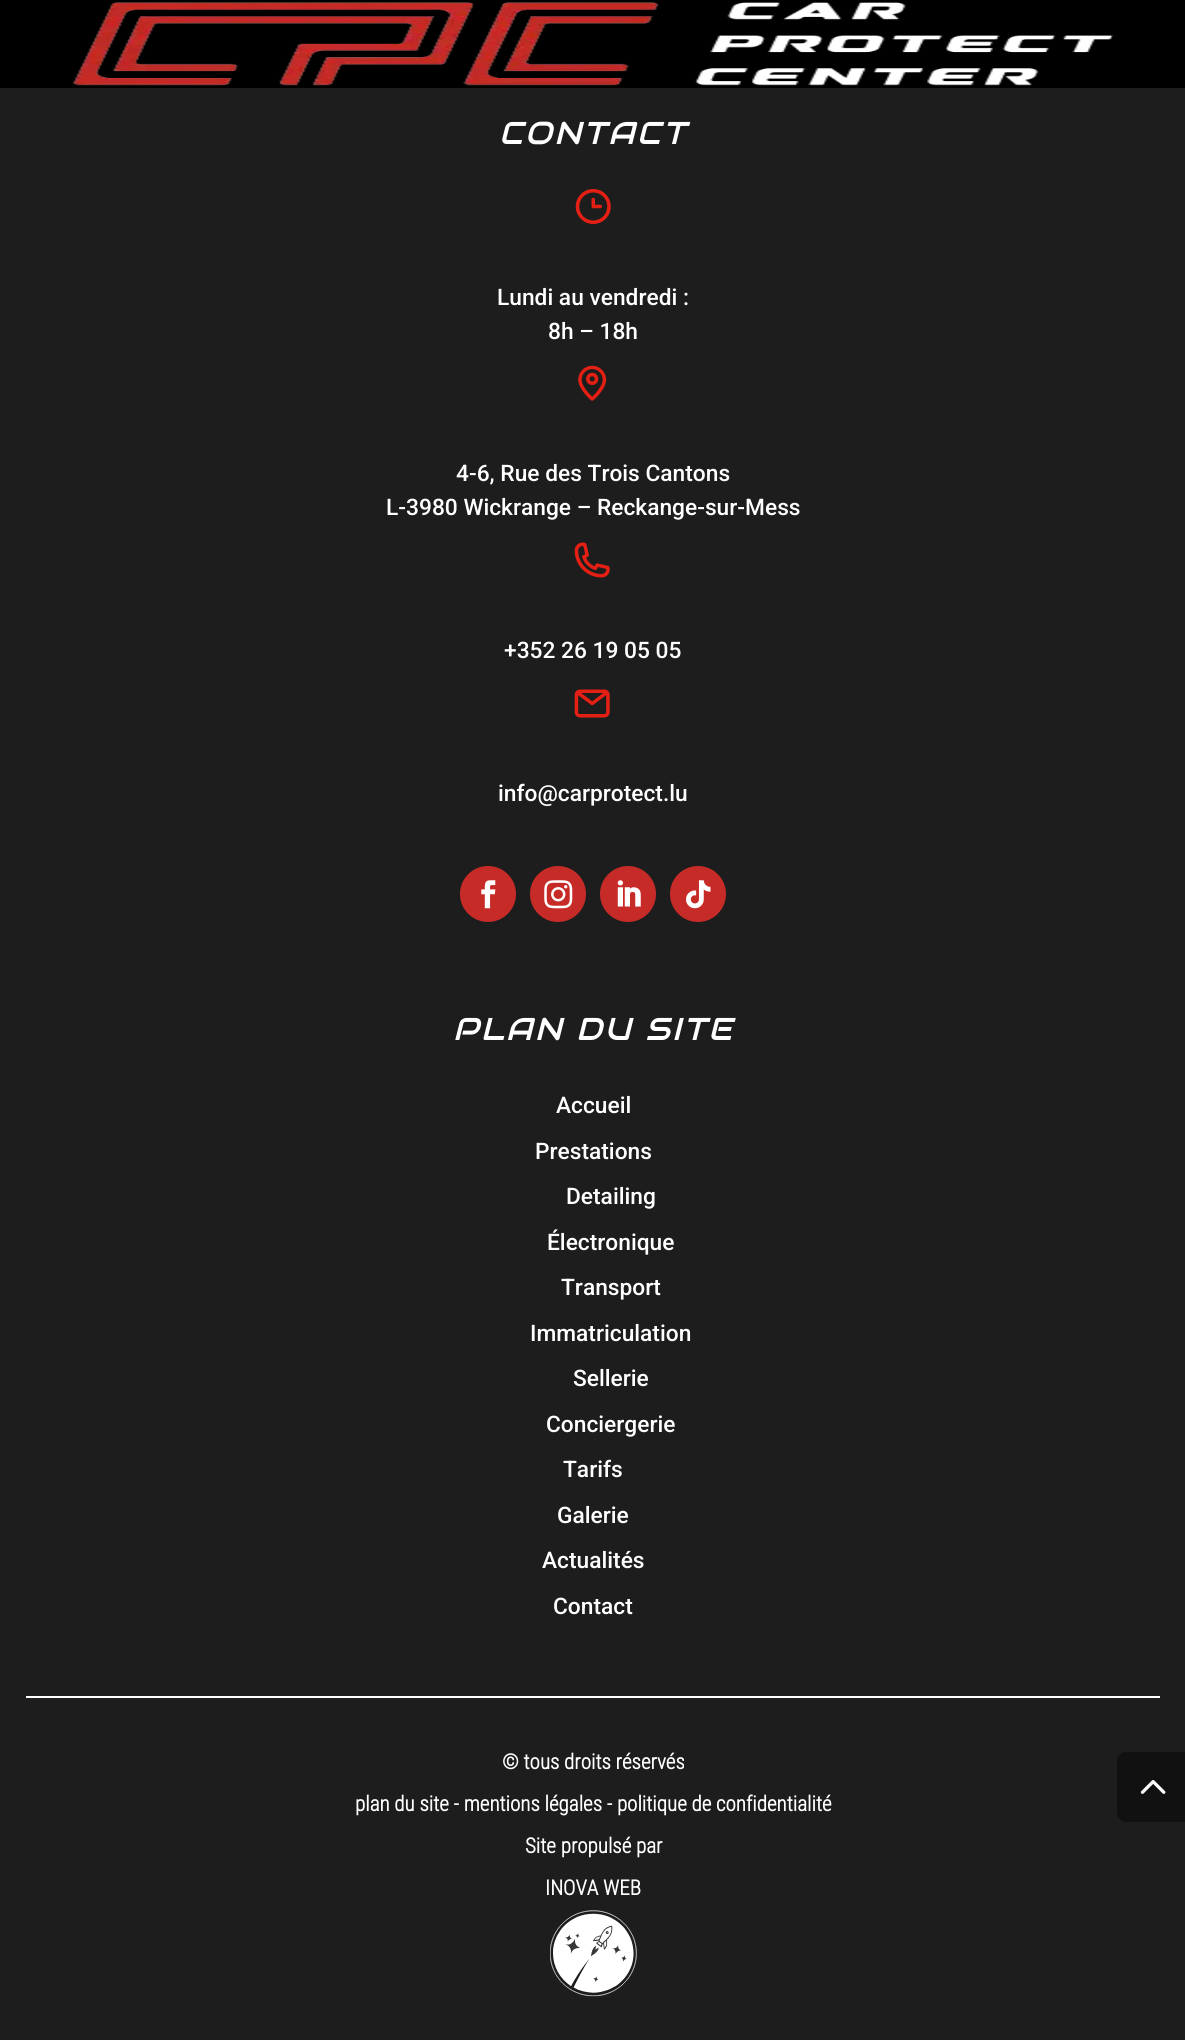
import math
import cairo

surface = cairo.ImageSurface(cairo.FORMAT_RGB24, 1185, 2040)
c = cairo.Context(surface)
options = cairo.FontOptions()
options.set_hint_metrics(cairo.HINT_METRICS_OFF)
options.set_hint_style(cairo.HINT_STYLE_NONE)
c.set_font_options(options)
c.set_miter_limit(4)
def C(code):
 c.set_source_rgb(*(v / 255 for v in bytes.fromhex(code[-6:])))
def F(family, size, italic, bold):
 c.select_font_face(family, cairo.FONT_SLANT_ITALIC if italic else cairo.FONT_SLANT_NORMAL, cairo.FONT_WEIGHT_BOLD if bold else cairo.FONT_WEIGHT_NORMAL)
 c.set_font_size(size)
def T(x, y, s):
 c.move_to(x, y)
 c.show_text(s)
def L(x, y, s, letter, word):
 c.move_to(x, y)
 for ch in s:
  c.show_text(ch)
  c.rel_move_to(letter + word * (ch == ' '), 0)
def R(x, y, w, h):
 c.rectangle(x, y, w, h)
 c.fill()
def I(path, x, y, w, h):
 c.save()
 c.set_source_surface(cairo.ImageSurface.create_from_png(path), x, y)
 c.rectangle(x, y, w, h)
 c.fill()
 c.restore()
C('1d1d1d')
c.paint()
C('000000')
R(0,0,1185,88)
I('1.png',72,2,1042,84)
F('Audiowide',31.5,1,0)
C('ffffff')
L(499,144,'CONTACT',2.25,0)
I('2.png',575,189,36,35)
F('Roboto Medium',22.75,0,0)
T(497,305,'Lundi au vendredi :')
T(548,339,'8h – 18h')
I('3.png',578,365,29,36)
T(456,481,'4-6, Rue des Trois Cantons')
T(386,515,'L-3980 Wickrange – Reckange-sur-Mess')
I('4.png',574,542,36,36)
T(504,658,'+352 26 19 05 05')
I('5.png',574,689,36,29)
T(498,801,'info@carprotect.lu')
C('c62b27')
c.new_path()
c.arc(488,894,28,0,2 * math.pi)
c.fill()
I('6.png',481,880,15,29)
c.arc(558,894,28,0,2 * math.pi)
c.fill()
I('7.png',544,880,29,29)
c.arc(628,894,28,0,2 * math.pi)
c.fill()
I('8.png',617,880,24,27)
c.arc(698,894,28,0,2 * math.pi)
c.fill()
I('9.png',686,880,25,29)
F('Audiowide',31.5,1,0)
C('ffffff')
L(453,1040,'PLAN DU SITE',2.25,0)
F('Roboto Medium',22.75,0,0)
T(556,1113,'Accueil')
T(535,1159,'Prestations')
T(566,1204,'Detailing')
T(547,1250,'Électronique')
T(561,1295,'Transport')
T(530,1341,'Immatriculation')
T(573,1386,'Sellerie')
T(546,1432,'Conciergerie')
T(563,1477,'Tarifs')
T(557,1523,'Galerie')
T(542,1568,'Actualités')
T(553,1614,'Contact')
R(26,1696,1134,2)
F('Roboto Condensed',21,0,1)
T(502,1769,'© tous droits réservés')
T(355,1811,'plan du site - mentions légales - politique de confidentialité')
T(525,1853,'Site propulsé par')
T(545,1895,'INOVA WEB')
I('10.png',550,1910,87,87)
C('111111')
c.new_path()
c.move_to(1126,1752)
c.line_to(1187,1752)
c.line_to(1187,1822)
c.line_to(1126,1822)
c.curve_to(1121,1822,1117,1818,1117,1813)
c.line_to(1117,1761)
c.curve_to(1117,1756,1121,1752,1126,1752)
c.close_path()
c.fill()
I('11.png',1140,1780,26,14)
surface.write_to_png('o.png')
